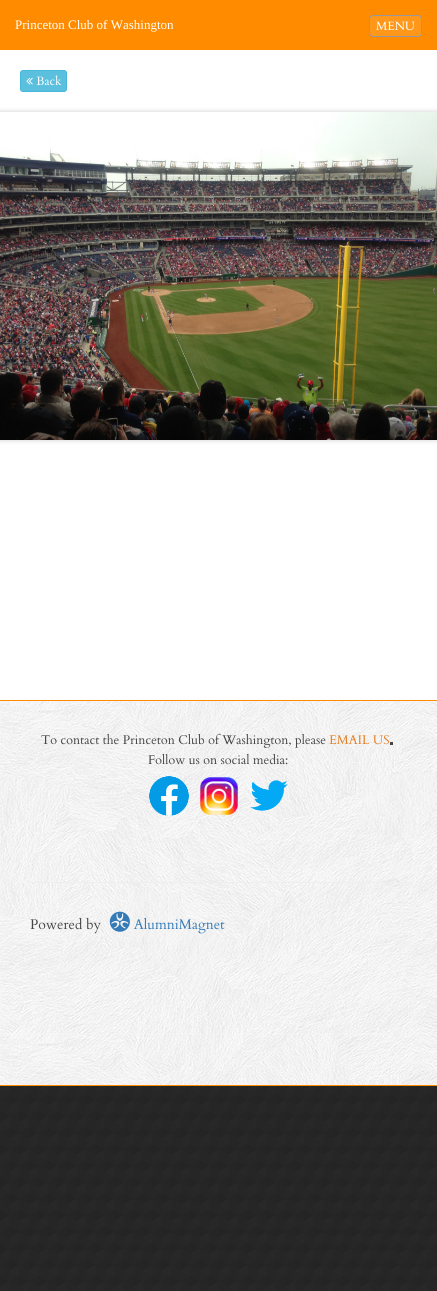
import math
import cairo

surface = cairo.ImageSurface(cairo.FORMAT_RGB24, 437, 1291)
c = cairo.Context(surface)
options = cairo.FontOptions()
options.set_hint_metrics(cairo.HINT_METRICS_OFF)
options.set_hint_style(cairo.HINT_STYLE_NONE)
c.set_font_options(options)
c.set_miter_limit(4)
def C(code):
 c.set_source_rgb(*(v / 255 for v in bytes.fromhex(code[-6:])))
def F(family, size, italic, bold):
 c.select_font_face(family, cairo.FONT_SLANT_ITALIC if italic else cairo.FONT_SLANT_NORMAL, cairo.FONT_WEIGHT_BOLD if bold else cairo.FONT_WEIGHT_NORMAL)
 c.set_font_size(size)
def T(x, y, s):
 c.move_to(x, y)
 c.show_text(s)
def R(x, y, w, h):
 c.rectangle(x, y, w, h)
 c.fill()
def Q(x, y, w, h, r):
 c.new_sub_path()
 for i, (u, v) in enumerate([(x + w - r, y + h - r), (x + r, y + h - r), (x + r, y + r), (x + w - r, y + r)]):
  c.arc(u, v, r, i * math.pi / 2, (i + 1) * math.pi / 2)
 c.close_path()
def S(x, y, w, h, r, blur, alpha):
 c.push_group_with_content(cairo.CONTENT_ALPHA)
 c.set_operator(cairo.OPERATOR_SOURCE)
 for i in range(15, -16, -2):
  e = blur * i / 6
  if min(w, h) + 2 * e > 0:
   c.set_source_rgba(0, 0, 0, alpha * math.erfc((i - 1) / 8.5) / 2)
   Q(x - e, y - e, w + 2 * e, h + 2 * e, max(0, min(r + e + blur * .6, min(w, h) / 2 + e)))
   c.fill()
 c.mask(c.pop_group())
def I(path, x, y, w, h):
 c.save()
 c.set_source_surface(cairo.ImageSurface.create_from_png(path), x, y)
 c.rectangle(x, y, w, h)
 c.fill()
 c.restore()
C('ffffff')
c.paint()
I('1.png',0,1086,437,205)
C('ff8c00')
R(0,0,437,50)
F('Liberation Serif',13,0,0)
C('ffffff')
T(15,29,'Princeton Club of Washington')
C('ff981a')
Q(369.5,15.5,52,21,3.5)
c.fill_preserve()
C('999999')
c.set_line_width(1)
c.stroke()
I('2.png',376,21,39,10)
C('5bc0de')
Q(20.5,70.5,46,21,2.5)
c.fill_preserve()
C('46b8da')
c.stroke()
I('3.png',26,77,7,8)
I('4.png',36,75,26,11)
C('cccccc')
S(0,112,437,328,0,2.5,1)
I('5.png',0,112,437,328)
I('6.png',0,701,437,384)
C('ff8c00')
R(0,700,437,1)
R(0,1085,437,1)
I('7.png',41,733,285,15)
I('8.png',329,735,60,10)
c.set_source_rgba(0.267,0.267,0.267,0.99)
R(390,742,3,3)
I('9.png',148,753,140,12)
I('10.png',149,776,40,40)
I('11.png',200,777,38,38)
I('12.png',250,780,38,31)
C('eeeeee')
R(30,882,377,1)
I('13.png',30,917,71,17)
I('14.png',109,911,21,21)
I('15.png',133,917,92,17)
surface.write_to_png('o.png')
